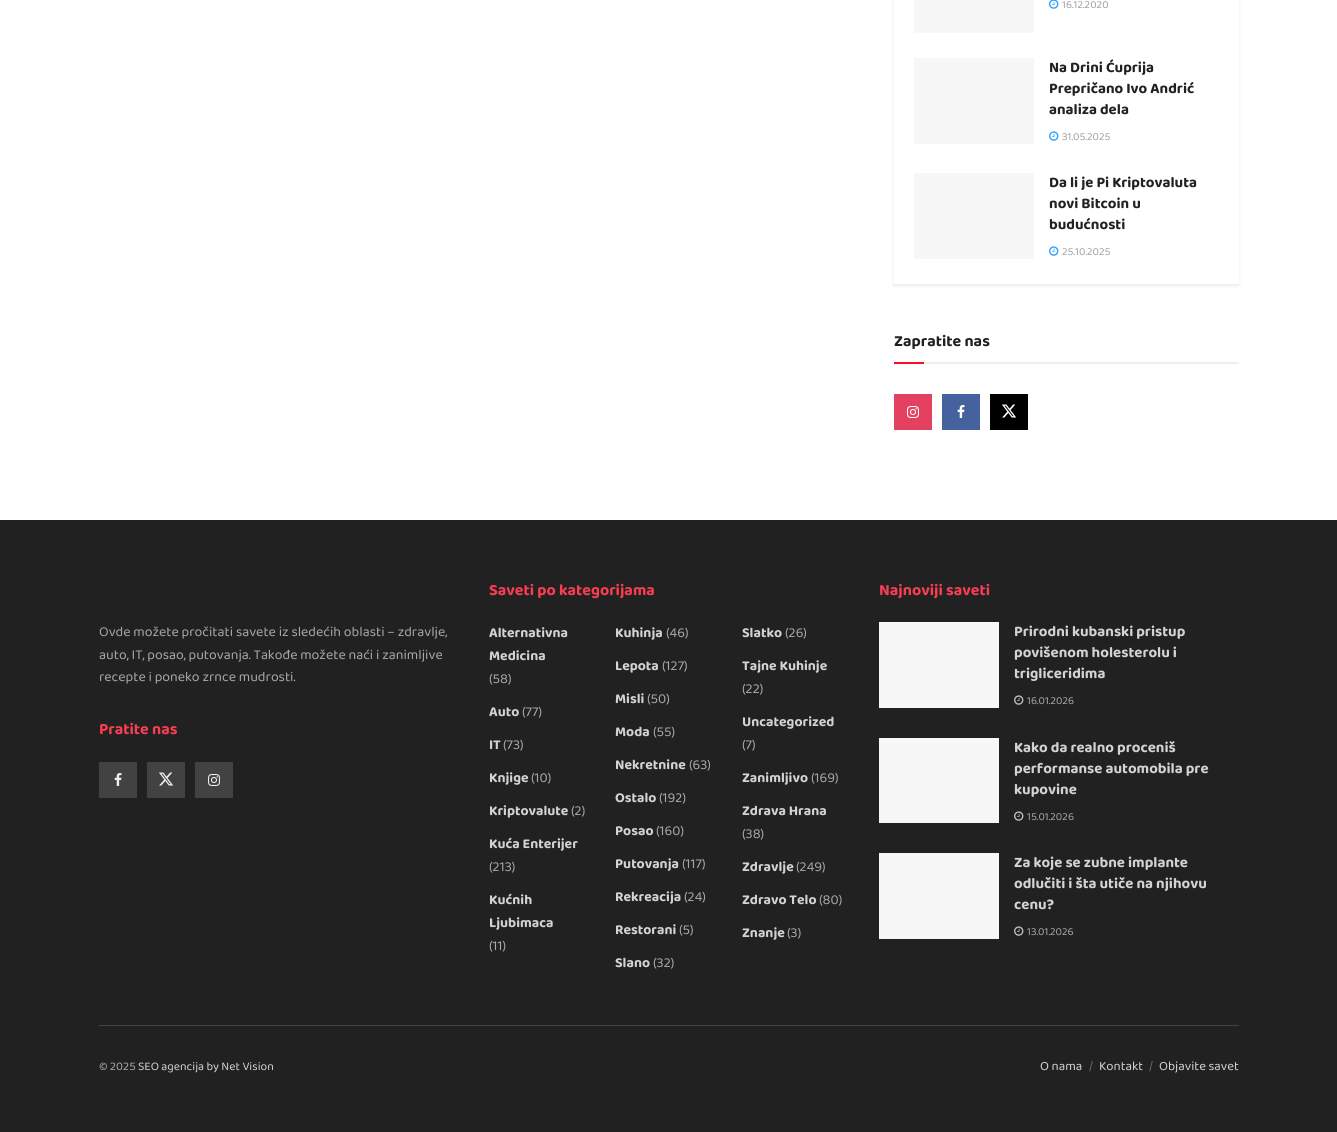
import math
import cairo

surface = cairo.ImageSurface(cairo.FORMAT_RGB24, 1337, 1132)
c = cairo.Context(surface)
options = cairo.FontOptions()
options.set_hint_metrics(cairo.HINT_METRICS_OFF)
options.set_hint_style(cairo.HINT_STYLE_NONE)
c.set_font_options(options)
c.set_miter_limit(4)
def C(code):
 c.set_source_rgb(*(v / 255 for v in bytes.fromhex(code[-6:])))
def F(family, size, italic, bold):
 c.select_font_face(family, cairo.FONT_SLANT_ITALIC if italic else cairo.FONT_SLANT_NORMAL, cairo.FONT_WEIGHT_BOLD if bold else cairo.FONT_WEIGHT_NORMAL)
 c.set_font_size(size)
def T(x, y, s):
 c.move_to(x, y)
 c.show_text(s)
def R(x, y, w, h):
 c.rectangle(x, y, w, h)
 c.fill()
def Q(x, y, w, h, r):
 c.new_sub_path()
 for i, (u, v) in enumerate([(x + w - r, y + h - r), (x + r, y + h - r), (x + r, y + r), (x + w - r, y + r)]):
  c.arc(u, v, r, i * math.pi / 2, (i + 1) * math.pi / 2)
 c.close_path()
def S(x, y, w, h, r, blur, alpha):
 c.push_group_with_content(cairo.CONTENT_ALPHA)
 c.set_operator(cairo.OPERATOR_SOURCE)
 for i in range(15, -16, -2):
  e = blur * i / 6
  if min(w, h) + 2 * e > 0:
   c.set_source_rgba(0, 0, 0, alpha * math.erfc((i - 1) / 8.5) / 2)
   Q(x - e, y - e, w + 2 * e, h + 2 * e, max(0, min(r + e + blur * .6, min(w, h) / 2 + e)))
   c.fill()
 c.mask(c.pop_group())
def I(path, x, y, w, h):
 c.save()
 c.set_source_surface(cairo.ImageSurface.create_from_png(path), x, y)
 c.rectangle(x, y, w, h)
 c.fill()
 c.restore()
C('ffffff')
c.paint()
c.save()
c.set_fill_rule(cairo.FILL_RULE_EVEN_ODD)
c.new_path()
c.move_to(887,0)
c.line_to(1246,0)
c.line_to(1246,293)
c.line_to(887,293)
c.close_path()
c.move_to(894,-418)
c.line_to(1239,-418)
c.line_to(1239,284)
c.line_to(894,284)
c.close_path()
c.clip()
C('000000')
S(894,-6,345,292,0,2,.08)
c.restore()
C('f7f7f7')
R(914,0,120,33)
I('1.png',1049,0,10,9)
F('Baloo Da 2',11,0,0)
C('a0a0a0')
T(1062,8,'16.12.2020')
C('f7f7f7')
R(914,58,120,86)
F('Baloo Da 2',15,0,1)
C('212121')
T(1049,72,'Na Drini Ćuprija')
T(1049,93,'Prepričano Ivo Andrić')
T(1049,114,'analiza dela')
I('2.png',1049,131,10,10)
F('Baloo Da 2',11,0,0)
C('a0a0a0')
T(1062,140,'31.05.2025')
C('f7f7f7')
R(914,173,120,86)
F('Baloo Da 2',15,0,1)
C('212121')
T(1049,187,'Da li je Pi Kriptovaluta')
T(1049,208,'novi Bitcoin u')
T(1049,229,'budućnosti')
I('2.png',1049,246,10,10)
F('Baloo Da 2',11,0,0)
C('a0a0a0')
T(1062,255,'25.10.2025')
C('eeeeee')
R(924,362,315,2)
F('Baloo Da 2',16,0,1)
C('212121')
T(894,346,'Zapratite nas')
C('f70d28')
R(894,362,30,2)
C('e4405f')
R(894,394,38,36)
I('3.png',907,406,12,12)
C('45629f')
R(942,394,38,36)
I('4.png',957,405,8,13)
C('000000')
R(990,394,38,36)
I('5.png',1002,404,15,14)
C('212121')
R(0,520,1337,612)
F('Baloo Da 2',14,0,0)
C('a8a8aa')
T(99,636,'Ovde možete pročitati savete iz sledećih oblasti – zdravlje,')
T(99,659,'auto, IT, posao, putovanja. Takođe možete naći i zanimljive')
T(99,681,'recepte i poneko zrnce mudrosti.')
F('Baloo Da 2',16,0,1)
C('f93d53')
T(99,734,'Pratite nas')
C('424242')
R(99,762,38,36)
I('6.png',114,773,8,13)
R(147,762,38,36)
I('7.png',159,772,15,14)
R(195,762,38,36)
I('8.png',208,774,12,12)
C('f93d53')
T(489,595,'Saveti po kategorijama')
F('Baloo Da 2',14,0,1)
C('d3d3d3')
T(489,637,'Alternativna')
T(489,660,'Medicina')
F('Baloo Da 2',14,0,0)
C('a8a8aa')
T(489,683,'(58)')
F('Baloo Da 2',14,0,1)
C('d3d3d3')
T(615,637,'Kuhinja')
F('Baloo Da 2',14,0,0)
C('a8a8aa')
T(666,637,'(46)')
F('Baloo Da 2',14,0,1)
C('d3d3d3')
T(742,637,'Slatko')
F('Baloo Da 2',14,0,0)
C('a8a8aa')
T(785,637,'(26)')
F('Baloo Da 2',14,0,1)
C('d3d3d3')
T(615,670,'Lepota')
F('Baloo Da 2',14,0,0)
C('a8a8aa')
T(662,670,'(127)')
F('Baloo Da 2',14,0,1)
C('d3d3d3')
T(742,670,'Tajne Kuhinje')
F('Baloo Da 2',14,0,0)
C('a8a8aa')
T(742,693,'(22)')
F('Baloo Da 2',14,0,1)
C('d3d3d3')
T(615,703,'Misli')
F('Baloo Da 2',14,0,0)
C('a8a8aa')
T(647,703,'(50)')
F('Baloo Da 2',14,0,1)
C('d3d3d3')
T(489,716,'Auto')
F('Baloo Da 2',14,0,0)
C('a8a8aa')
T(522,716,'(77)')
F('Baloo Da 2',14,0,1)
C('d3d3d3')
T(615,736,'Moda')
F('Baloo Da 2',14,0,0)
C('a8a8aa')
T(653,736,'(55)')
F('Baloo Da 2',14,0,1)
C('d3d3d3')
T(742,726,'Uncategorized')
F('Baloo Da 2',14,0,0)
C('a8a8aa')
T(742,749,'(7)')
F('Baloo Da 2',14,0,1)
C('d3d3d3')
T(489,749,'IT')
F('Baloo Da 2',14,0,0)
C('a8a8aa')
T(503,749,'(73)')
F('Baloo Da 2',14,0,1)
C('d3d3d3')
T(615,769,'Nekretnine')
F('Baloo Da 2',14,0,0)
C('a8a8aa')
T(689,769,'(63)')
F('Baloo Da 2',14,0,1)
C('d3d3d3')
T(489,782,'Knjige')
F('Baloo Da 2',14,0,0)
C('a8a8aa')
T(531,782,'(10)')
F('Baloo Da 2',14,0,1)
C('d3d3d3')
T(742,782,'Zanimljivo')
F('Baloo Da 2',14,0,0)
C('a8a8aa')
T(811,782,'(169)')
F('Baloo Da 2',14,0,1)
C('d3d3d3')
T(615,802,'Ostalo')
F('Baloo Da 2',14,0,0)
C('a8a8aa')
T(659,802,'(192)')
F('Baloo Da 2',14,0,1)
C('d3d3d3')
T(489,815,'Kriptovalute')
F('Baloo Da 2',14,0,0)
C('a8a8aa')
T(571,815,'(2)')
F('Baloo Da 2',14,0,1)
C('d3d3d3')
T(615,835,'Posao')
F('Baloo Da 2',14,0,0)
C('a8a8aa')
T(656,835,'(160)')
F('Baloo Da 2',14,0,1)
C('d3d3d3')
T(742,815,'Zdrava Hrana')
F('Baloo Da 2',14,0,0)
C('a8a8aa')
T(742,838,'(38)')
F('Baloo Da 2',14,0,1)
C('d3d3d3')
T(489,848,'Kuća Enterijer')
F('Baloo Da 2',14,0,0)
C('a8a8aa')
T(489,871,'(213)')
F('Baloo Da 2',14,0,1)
C('d3d3d3')
T(615,868,'Putovanja')
F('Baloo Da 2',14,0,0)
C('a8a8aa')
T(682,868,'(117)')
F('Baloo Da 2',14,0,1)
C('d3d3d3')
T(742,871,'Zdravlje')
F('Baloo Da 2',14,0,0)
C('a8a8aa')
T(796,871,'(249)')
F('Baloo Da 2',14,0,1)
C('d3d3d3')
T(489,904,'Kućnih')
T(489,927,'Ljubimaca')
F('Baloo Da 2',14,0,0)
C('a8a8aa')
T(489,950,'(11)')
F('Baloo Da 2',14,0,1)
C('d3d3d3')
T(615,901,'Rekreacija')
F('Baloo Da 2',14,0,0)
C('a8a8aa')
T(684,901,'(24)')
F('Baloo Da 2',14,0,1)
C('d3d3d3')
T(742,904,'Zdravo Telo')
F('Baloo Da 2',14,0,0)
C('a8a8aa')
T(819,904,'(80)')
F('Baloo Da 2',14,0,1)
C('d3d3d3')
T(615,934,'Restorani')
F('Baloo Da 2',14,0,0)
C('a8a8aa')
T(679,934,'(5)')
F('Baloo Da 2',14,0,1)
C('d3d3d3')
T(742,937,'Znanje')
F('Baloo Da 2',14,0,0)
C('a8a8aa')
T(787,937,'(3)')
F('Baloo Da 2',14,0,1)
C('d3d3d3')
T(615,967,'Slano')
F('Baloo Da 2',14,0,0)
C('a8a8aa')
T(653,967,'(32)')
F('Baloo Da 2',16,0,1)
C('f93d53')
T(879,595,'Najnoviji saveti')
C('f7f7f7')
R(879,622,120,86)
F('Baloo Da 2',15,0,1)
C('d3d3d3')
T(1014,636,'Prirodni kubanski pristup')
T(1014,657,'povišenom holesterolu i')
T(1014,678,'trigliceridima')
I('9.png',1014,695,10,10)
F('Baloo Da 2',11,0,0)
C('a8a8aa')
T(1027,704,'16.01.2026')
C('f7f7f7')
R(879,738,120,85)
F('Baloo Da 2',15,0,1)
C('d3d3d3')
T(1014,752,'Kako da realno proceniš')
T(1014,773,'performanse automobila pre')
T(1014,794,'kupovine')
I('9.png',1014,811,10,10)
F('Baloo Da 2',11,0,0)
C('a8a8aa')
T(1027,820,'15.01.2026')
C('f7f7f7')
R(879,853,120,86)
F('Baloo Da 2',15,0,1)
C('d3d3d3')
T(1014,867,'Za koje se zubne implante')
T(1014,888,'odlučiti i šta utiče na njihovu')
T(1014,909,'cenu?')
I('9.png',1014,926,10,10)
F('Baloo Da 2',11,0,0)
C('a8a8aa')
T(1027,935,'13.01.2026')
C('424242')
R(99,1025,1140,1)
F('Baloo Da 2',12,0,0)
C('a8a8aa')
T(99,1070,'© 2025')
C('d3d3d3')
T(138,1070,'SEO agencija by Net Vision')
F('Baloo Da 2',13,0,0)
T(1040,1070,'O nama')
C('646464')
T(1089,1070,'/')
C('d3d3d3')
T(1099,1070,'Kontakt')
C('646464')
T(1149,1070,'/')
C('d3d3d3')
T(1159,1070,'Objavite savet')
surface.write_to_png('o.png')
